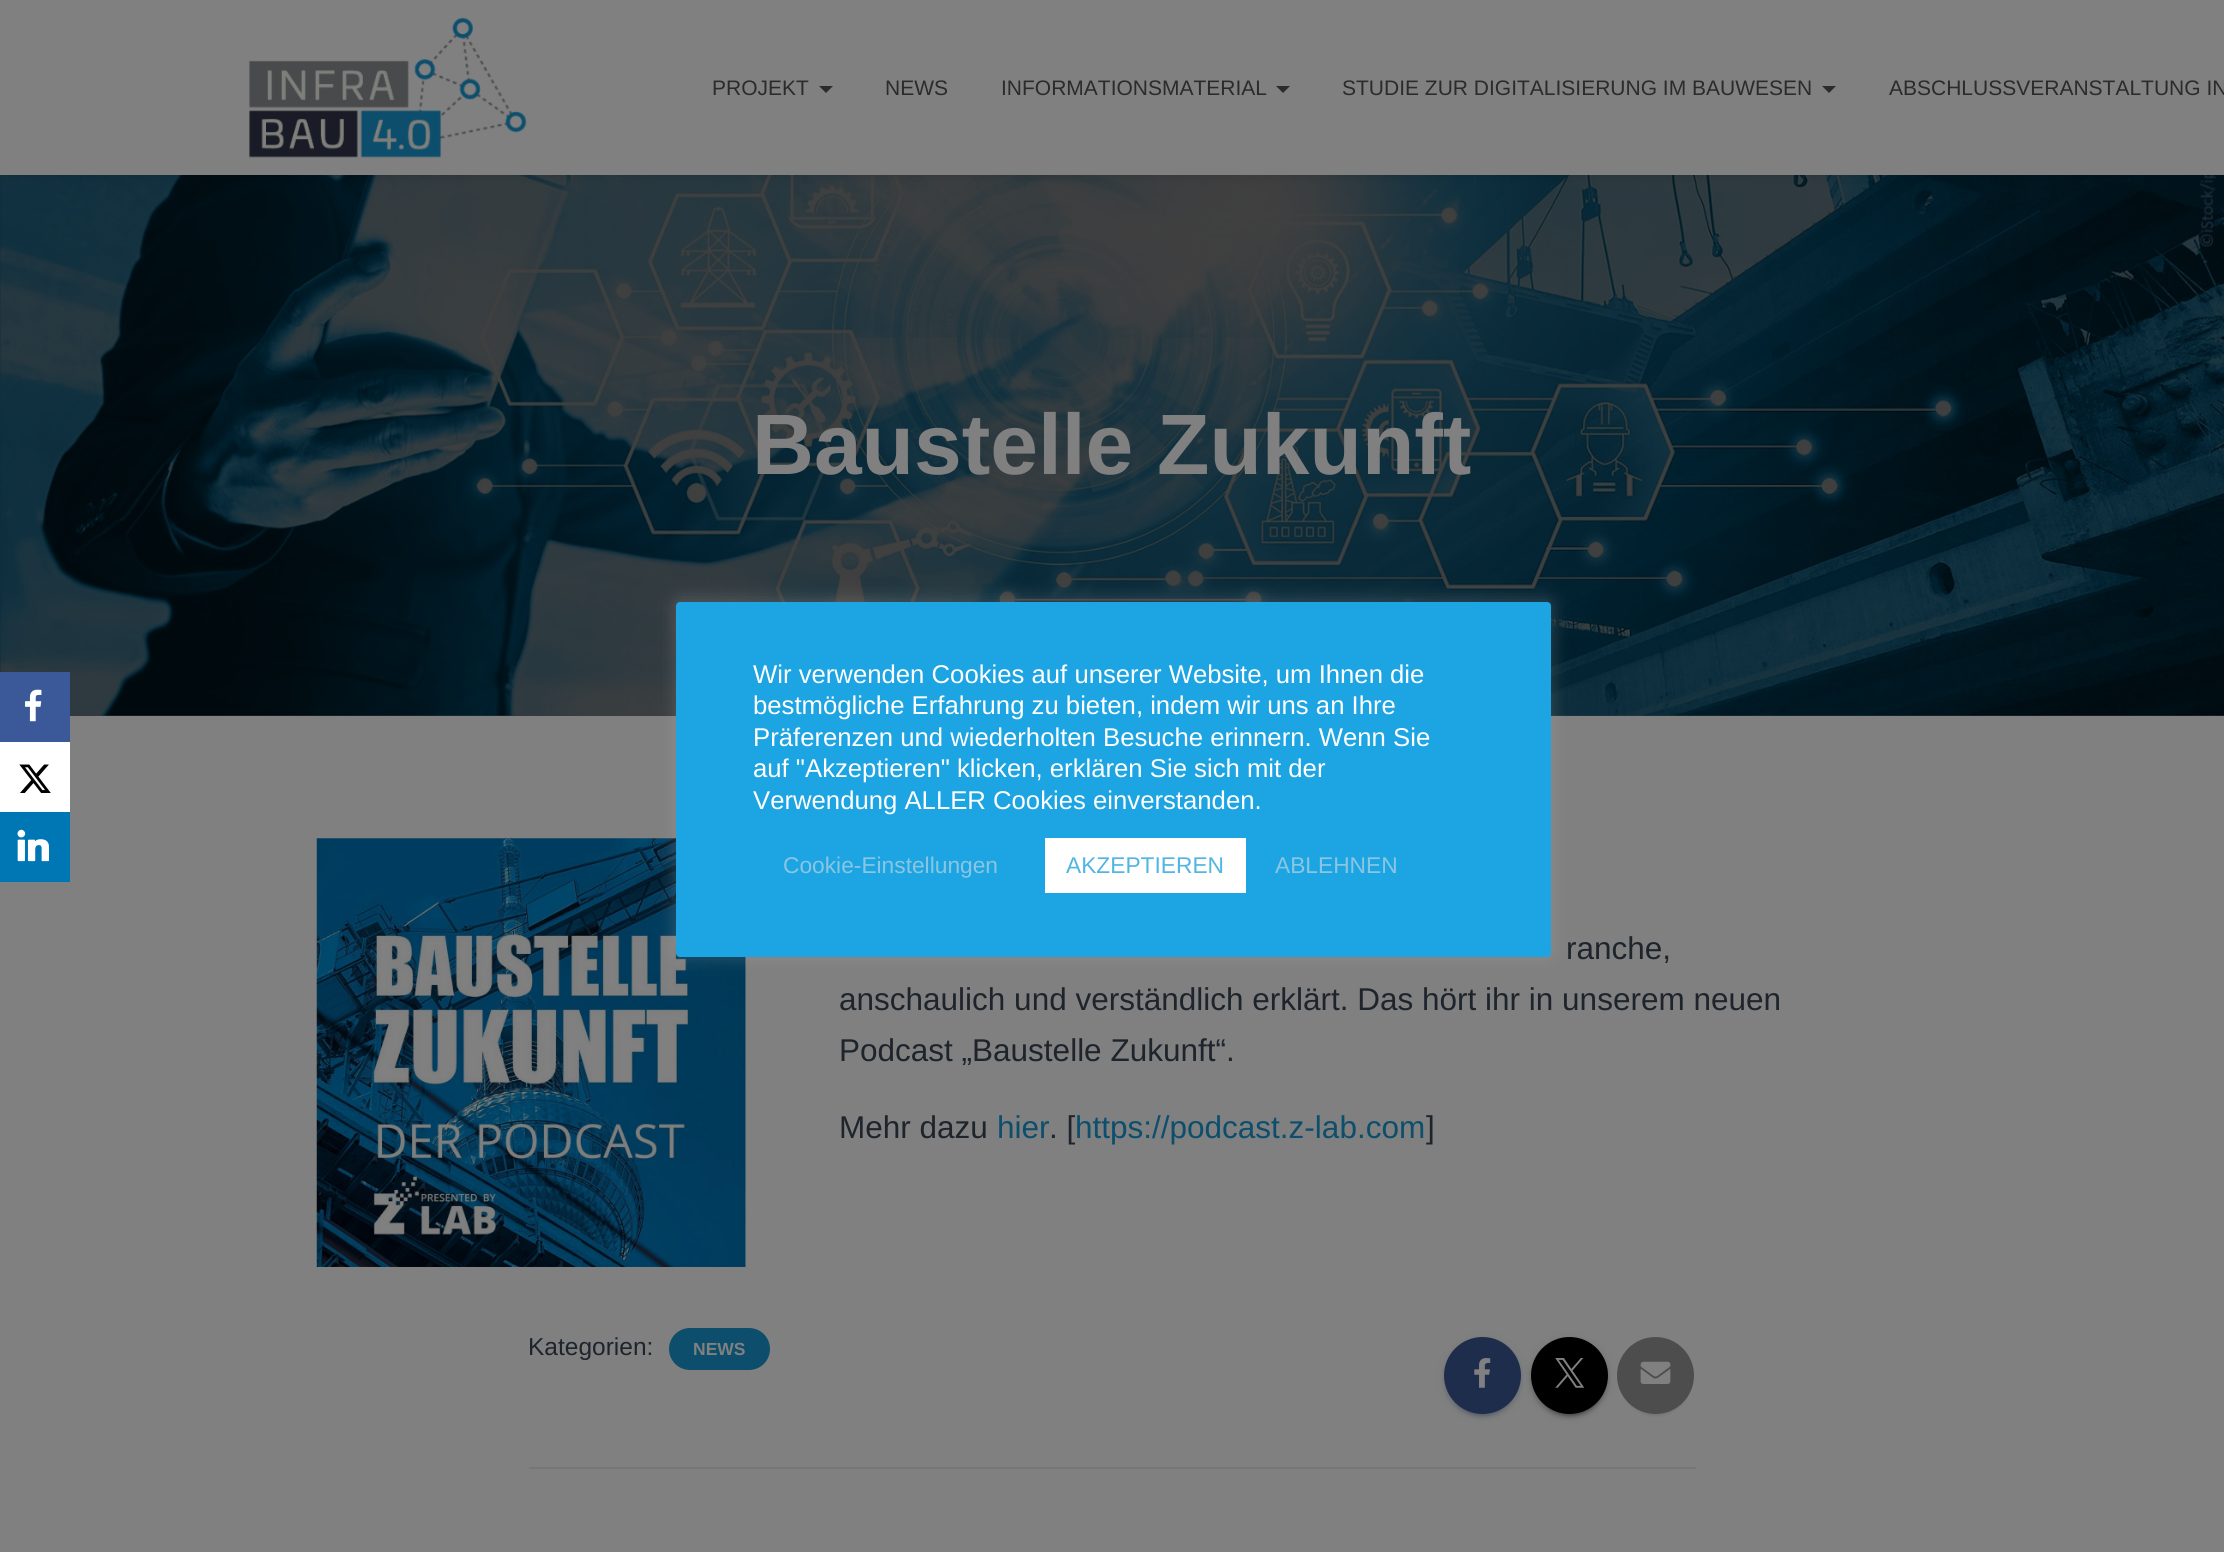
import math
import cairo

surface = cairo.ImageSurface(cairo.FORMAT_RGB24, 2224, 1552)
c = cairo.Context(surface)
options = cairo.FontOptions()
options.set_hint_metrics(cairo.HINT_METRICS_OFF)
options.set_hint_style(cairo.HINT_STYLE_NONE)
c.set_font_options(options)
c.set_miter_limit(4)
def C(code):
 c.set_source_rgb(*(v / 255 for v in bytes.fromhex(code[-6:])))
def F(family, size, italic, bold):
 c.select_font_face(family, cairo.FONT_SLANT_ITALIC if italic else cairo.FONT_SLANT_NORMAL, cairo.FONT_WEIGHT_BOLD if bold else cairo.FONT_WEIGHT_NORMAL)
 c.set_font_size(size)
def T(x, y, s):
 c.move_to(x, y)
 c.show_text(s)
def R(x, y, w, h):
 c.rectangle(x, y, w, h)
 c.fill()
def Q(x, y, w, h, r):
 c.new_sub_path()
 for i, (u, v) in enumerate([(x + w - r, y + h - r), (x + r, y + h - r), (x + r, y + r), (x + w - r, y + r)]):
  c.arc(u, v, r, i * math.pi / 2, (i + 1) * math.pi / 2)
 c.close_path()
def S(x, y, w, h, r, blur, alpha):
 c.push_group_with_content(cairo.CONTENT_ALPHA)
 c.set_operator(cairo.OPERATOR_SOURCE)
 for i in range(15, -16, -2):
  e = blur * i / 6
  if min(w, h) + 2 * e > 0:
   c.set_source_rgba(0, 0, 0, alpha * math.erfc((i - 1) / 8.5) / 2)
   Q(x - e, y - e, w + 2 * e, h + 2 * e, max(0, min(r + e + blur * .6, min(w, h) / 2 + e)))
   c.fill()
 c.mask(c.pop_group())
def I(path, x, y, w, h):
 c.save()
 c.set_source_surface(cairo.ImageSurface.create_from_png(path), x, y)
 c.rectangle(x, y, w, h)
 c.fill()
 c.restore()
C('3a3a3a')
c.paint()
I('2.png',0,175,2224,541)
C('000000')
S(11,12,2203,154,0,9,.42)
C('808080')
R(0,0,2224,175)
I('1.png',249,17,278,141)
F('Liberation Sans',21,0,0)
C('2b2b2b')
T(712,95,'PROJEKT')
c.new_path()
c.move_to(819,86)
c.line_to(833,86)
c.line_to(826,93)
c.close_path()
c.fill()
T(885,95,'NEWS')
T(1001,95,'INFORMATIONSMATERIAL')
c.new_path()
c.move_to(1276,86)
c.line_to(1290,86)
c.line_to(1283,93)
c.close_path()
c.fill()
T(1342,95,'STUDIE ZUR DIGITALISIERUNG IM BAUWESEN')
c.new_path()
c.move_to(1822,86)
c.line_to(1836,86)
c.line_to(1829,93)
c.close_path()
c.fill()
T(1889,95,'ABSCHLUSSVERANSTALTUNG IN')
F('Liberation Sans',85.75,0,1)
C('808080')
T(752,474,'Baustelle Zukunft')
R(0,716,2224,836)
I('3.png',316,838,430,429)
F('Liberation Sans',31.5,0,0)
C('1e242c')
T(1566,959,'ranche,')
T(839,1010,'anschaulich und verständlich erklärt. Das hört ihr in unserem neuen')
T(839,1061,'Podcast „Baustelle Zukunft“.')
T(839,1138,'Mehr dazu')
C('0c4e6c')
T(997,1138,'hier')
C('1e242c')
T(1049,1138,'. [')
C('0c4e6c')
T(1075,1138,'https://podcast.z-lab.com')
C('1e242c')
T(1426,1138,']')
F('Liberation Sans',24.5,0,0)
T(528,1355,'Kategorien:')
C('0c4e6c')
Q(669,1328,101,42,21)
c.fill()
F('Liberation Sans',17.5,0,1)
C('808080')
T(693,1355,'NEWS')
C('1e2d4c')
S(1444,1339,77,77,38.5,4.5,.12)
S(1447,1346,70,70,35,1,.2)
S(1444,1341,77,77,38.5,2,.14)
C('1e2d4c')
c.arc(1482.5,1375.5,38.5,0,2 * math.pi)
c.fill()
I('4.png',1474,1358,17,30)
C('000000')
S(1531,1339,77,77,38.5,4.5,.12)
S(1535,1346,70,70,35,1,.2)
S(1531,1341,77,77,38.5,2,.14)
C('000000')
c.arc(1569.5,1375.5,38.5,0,2 * math.pi)
c.fill()
I('5.png',1555,1358,30,30)
C('4d4d4d')
S(1621,1346,70,70,35,1,.2)
C('4d4d4d')
c.arc(1655.5,1375.5,38.5,0,2 * math.pi)
c.fill()
I('6.png',1640,1361,31,23)
C('777777')
R(529,1467,1167,2)
C('3b5998')
R(0,672,70,70)
I('7.png',25,689,17,33)
C('ffffff')
R(0,742,70,70)
I('8.png',19,764,32,29)
C('0077b5')
R(0,812,70,70)
I('9.png',17,829,32,33)
C('acabab')
S(676,600,875,356,4,9,.3)
C('1da4e2')
Q(676,602,875,355,4)
c.fill()
F('Liberation Sans',25.7,0,0)
C('ffffff')
T(753,683,'Wir verwenden Cookies auf unserer Website, um Ihnen die')
T(753,714,'bestmögliche Erfahrung zu bieten, indem wir uns an Ihre')
T(753,746,'Präferenzen und wiederholten Besuche erinnern. Wenn Sie')
T(753,777,'auf "Akzeptieren" klicken, erklären Sie sich mit der')
T(753,809,'Verwendung ALLER Cookies einverstanden.')
F('Liberation Sans',22.75,0,0)
C('8ac6e2')
T(783,873,'Cookie-Einstellungen')
C('ffffff')
R(1045,838,201,55)
C('52b5e2')
T(1066,873,'AKZEPTIEREN')
C('8ac6e2')
T(1275,873,'ABLEHNEN')
surface.write_to_png('o.png')
